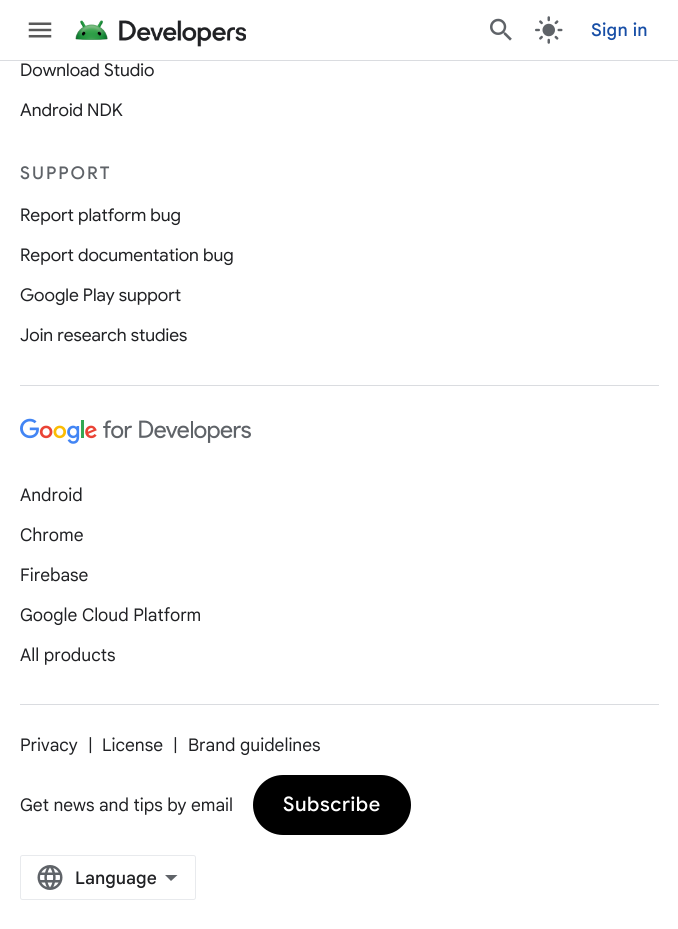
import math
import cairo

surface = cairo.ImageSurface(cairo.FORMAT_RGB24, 678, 929)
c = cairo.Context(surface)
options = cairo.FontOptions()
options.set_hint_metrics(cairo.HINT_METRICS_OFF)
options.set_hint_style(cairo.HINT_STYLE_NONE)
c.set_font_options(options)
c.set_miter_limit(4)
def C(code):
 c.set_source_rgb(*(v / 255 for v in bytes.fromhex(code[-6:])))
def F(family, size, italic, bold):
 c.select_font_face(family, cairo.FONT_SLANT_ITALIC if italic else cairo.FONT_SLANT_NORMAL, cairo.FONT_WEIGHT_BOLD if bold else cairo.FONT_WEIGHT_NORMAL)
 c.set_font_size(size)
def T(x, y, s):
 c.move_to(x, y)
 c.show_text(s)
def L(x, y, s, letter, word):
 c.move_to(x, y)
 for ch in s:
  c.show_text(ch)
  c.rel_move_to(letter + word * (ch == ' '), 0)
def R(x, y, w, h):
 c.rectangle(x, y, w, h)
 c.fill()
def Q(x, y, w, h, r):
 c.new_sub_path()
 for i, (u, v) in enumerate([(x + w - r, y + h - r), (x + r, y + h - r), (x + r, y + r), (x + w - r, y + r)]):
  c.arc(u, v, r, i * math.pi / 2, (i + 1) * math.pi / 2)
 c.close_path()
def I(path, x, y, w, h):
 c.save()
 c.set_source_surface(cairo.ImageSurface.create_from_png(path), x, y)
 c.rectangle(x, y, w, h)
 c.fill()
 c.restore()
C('ffffff')
c.paint()
C('dadce0')
R(0,60,678,1)
I('1.png',28,22,24,16)
I('2.png',75,20,171,27)
I('3.png',490,18,22,23)
I('4.png',535,16,28,28)
F('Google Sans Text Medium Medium',17.5,0,0)
C('174ea6')
L(591,36,'Sign in',.25,0)
C('dadce0')
R(20,385,639,1)
F('Google Sans',17.5,0,0)
C('202124')
T(20,76,'Download Studio')
T(20,116,'Android NDK')
F('Google Sans Medium',17.5,0,0)
C('5f6368')
L(20,179,'SUPPORT',2,0)
F('Google Sans',17.5,0,0)
C('202124')
T(20,221,'Report platform bug')
T(20,261,'Report documentation bug')
T(20,301,'Google Play support')
T(20,341,'Join research studies')
C('dadce0')
R(20,704,639,1)
I('5.png',20,418,231,26)
F('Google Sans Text',17.5,0,0)
C('202124')
T(20,501,'Android')
T(20,541,'Chrome')
T(20,581,'Firebase')
T(20,621,'Google Cloud Platform')
T(20,661,'All products')
T(20,751,'Privacy')
T(88,751,'|')
T(102,751,'License')
T(173,751,'|')
T(188,751,'Brand guidelines')
T(20,811,'Get news and tips by email')
C('000000')
Q(253,775,158,60,30)
c.fill()
F('Google Sans Medium',20,0,0)
C('ffffff')
L(283,811,'Subscribe',.6,0)
Q(20.5,855.5,175,44,2)
C('e8eaed')
c.set_line_width(1)
c.stroke()
I('6.png',37,865,26,25)
F('Google Sans Text Medium Medium',17.5,0,0)
C('202124')
T(75,884,'Language')
C('5f6368')
c.new_path()
c.move_to(171,881)
c.line_to(165,875)
c.line_to(177.5,875)
c.close_path()
c.fill()
surface.write_to_png('o.png')
